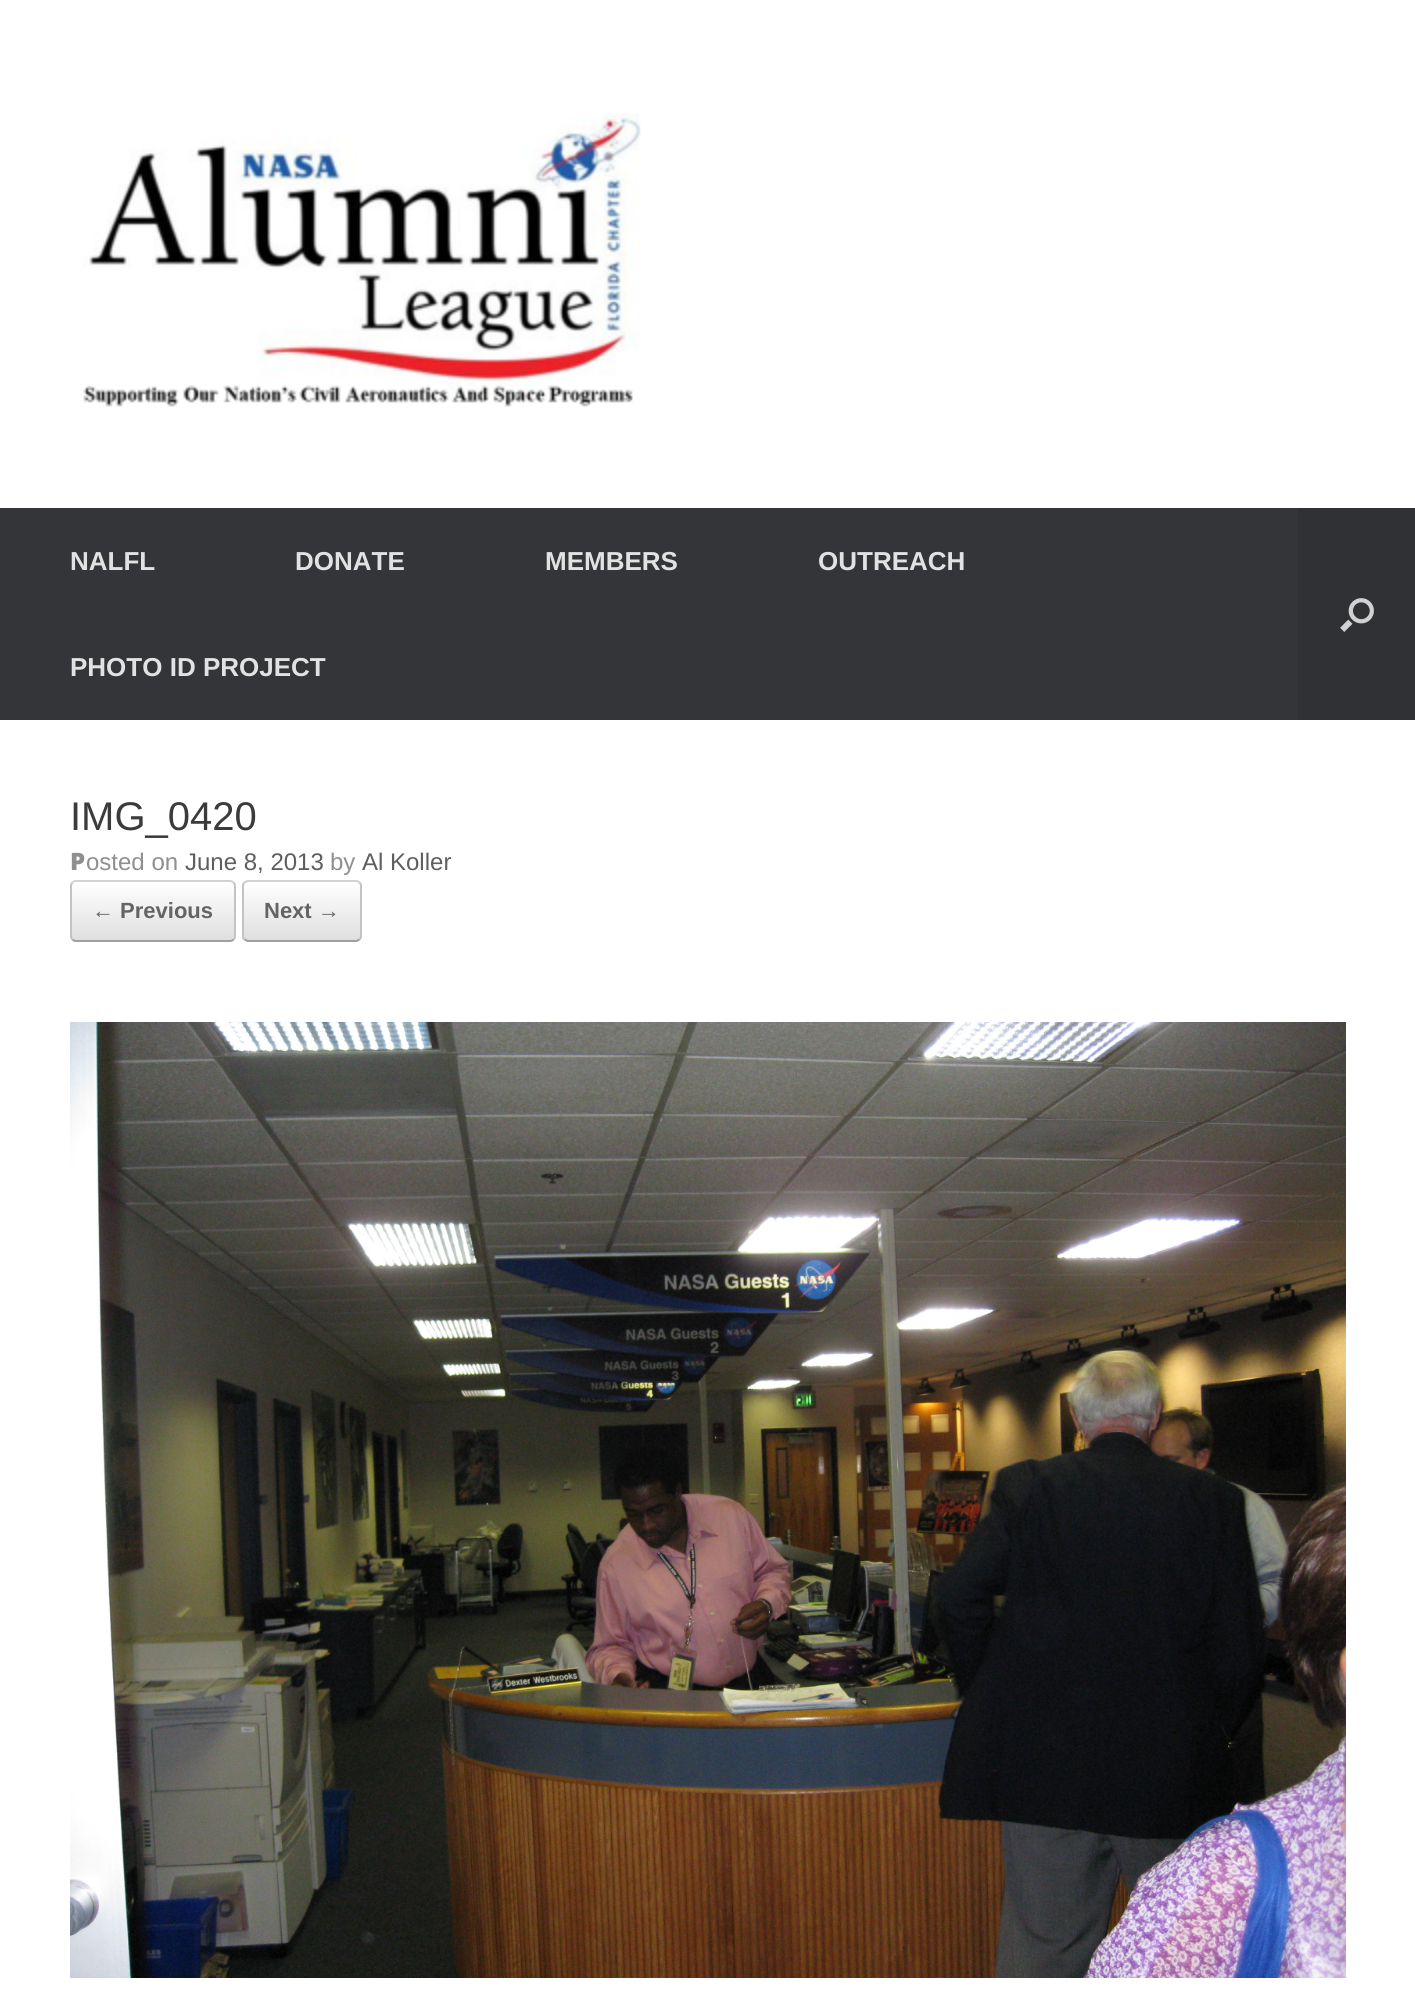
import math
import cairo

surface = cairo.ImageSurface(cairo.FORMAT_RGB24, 1415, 2010)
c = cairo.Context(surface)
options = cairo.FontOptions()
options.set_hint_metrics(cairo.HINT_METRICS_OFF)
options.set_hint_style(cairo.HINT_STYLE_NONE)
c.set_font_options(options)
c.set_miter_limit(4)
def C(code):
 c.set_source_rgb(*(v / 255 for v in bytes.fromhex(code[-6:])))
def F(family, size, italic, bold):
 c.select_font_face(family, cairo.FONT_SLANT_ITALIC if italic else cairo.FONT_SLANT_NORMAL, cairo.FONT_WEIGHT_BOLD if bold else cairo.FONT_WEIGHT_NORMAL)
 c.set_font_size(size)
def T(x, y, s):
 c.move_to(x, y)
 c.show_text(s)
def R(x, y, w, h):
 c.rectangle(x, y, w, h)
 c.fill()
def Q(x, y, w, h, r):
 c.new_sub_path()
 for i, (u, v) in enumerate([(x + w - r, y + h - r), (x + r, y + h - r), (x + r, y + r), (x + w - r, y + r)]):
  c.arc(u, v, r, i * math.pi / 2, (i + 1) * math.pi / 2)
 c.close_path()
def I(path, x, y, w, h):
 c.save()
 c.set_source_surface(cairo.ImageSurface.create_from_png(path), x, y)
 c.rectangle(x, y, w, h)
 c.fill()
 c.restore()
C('ffffff')
c.paint()
I('1.png',83,113,558,294)
C('343538')
R(0,508,1298,212)
F('Liberation Sans',26,0,1)
C('e2e2e2')
T(70,570,'NALFL')
T(295,570,'DONATE')
T(545,570,'MEMBERS')
T(818,570,'OUTREACH')
T(70,676,'PHOTO ID PROJECT')
C('303134')
R(1298,508,117,212)
I('2.png',1340,598,34,34)
F('Liberation Sans',40,0,0)
C('3b3b3b')
T(70,830,'IMG_0420')
F('Noto Sans Black',24,0,0)
C('8f8f8f')
T(70,870,'P')
F('Liberation Sans',24,0,0)
T(86,870,'osted on')
C('5e5e5e')
T(185,870,'June 8, 2013')
C('8f8f8f')
T(330,870,'by')
C('5e5e5e')
T(362,870,'Al Koller')
c.save()
Q(70,880,166,62,6)
c.clip()
gradient = cairo.LinearGradient(72,940,72,882)
gradient.add_color_stop_rgba(0,0.875,0.875,0.875,1)
gradient.add_color_stop_rgba(1,1,1,1,1)
c.set_source(gradient)
R(70,882,166,58)
c.restore()
c.new_path()
c.move_to(72.5,882.5)
c.curve_to(73.5,881.5,74.5,881,76,881)
c.line_to(230,881)
c.curve_to(231.5,881,232.5,881.5,233.5,882.5)
C('d2d2d2')
c.stroke()
c.new_path()
c.move_to(233.5,882.5)
c.curve_to(234.5,883.5,235,884.5,235,886)
c.line_to(235,936)
c.curve_to(235,937.5,234.5,938.5,233.5,939.5)
C('c3c3c3')
c.stroke()
c.new_path()
c.move_to(233.5,939.5)
c.curve_to(232.5,940.5,231.5,941,230,941)
c.line_to(76,941)
c.curve_to(74.5,941,73.5,940.5,72.5,939.5)
C('9f9f9f')
c.stroke()
c.new_path()
c.move_to(72.5,939.5)
c.curve_to(71.5,938.5,71,937.5,71,936)
c.line_to(71,886)
c.curve_to(71,884.5,71.5,883.5,72.5,882.5)
C('c3c3c3')
c.stroke()
F('Liberation Sans',22,0,1)
C('646464')
T(92,918,'← Previous')
c.save()
Q(242,880,120,62,6)
c.clip()
gradient = cairo.LinearGradient(244,882,244,824)
gradient.add_color_stop_rgba(0,0.875,0.875,0.875,1)
gradient.add_color_stop_rgba(1,1,1,1,1)
c.set_source(gradient)
R(242,880,120,2)
gradient = cairo.LinearGradient(244,940,244,882)
gradient.add_color_stop_rgba(0,0.875,0.875,0.875,1)
gradient.add_color_stop_rgba(1,1,1,1,1)
c.set_source(gradient)
R(242,882,120,58)
c.restore()
c.new_path()
c.move_to(244.5,882.5)
c.line_to(247.5,881)
c.line_to(356.5,881)
c.line_to(359.5,882.5)
C('d2d2d2')
c.stroke()
c.new_path()
c.move_to(359.5,882.5)
c.curve_to(360.5,883.5,361,884.5,361,886)
c.line_to(361,936)
c.curve_to(361,937.5,360.5,938.5,359.5,939.5)
C('c3c3c3')
c.stroke()
c.new_path()
c.move_to(359.5,939.5)
c.line_to(356.5,941)
c.line_to(247.5,941)
c.line_to(244.5,939.5)
C('9f9f9f')
c.stroke()
c.new_path()
c.move_to(244.5,939.5)
c.curve_to(243.5,938.5,243,937.5,243,936)
c.line_to(243,886)
c.curve_to(243,884.5,243.5,883.5,244.5,882.5)
C('c3c3c3')
c.stroke()
C('646464')
T(264,918,'Next →')
I('3.png',70,1022,1276,956)
surface.write_to_png('o.png')
